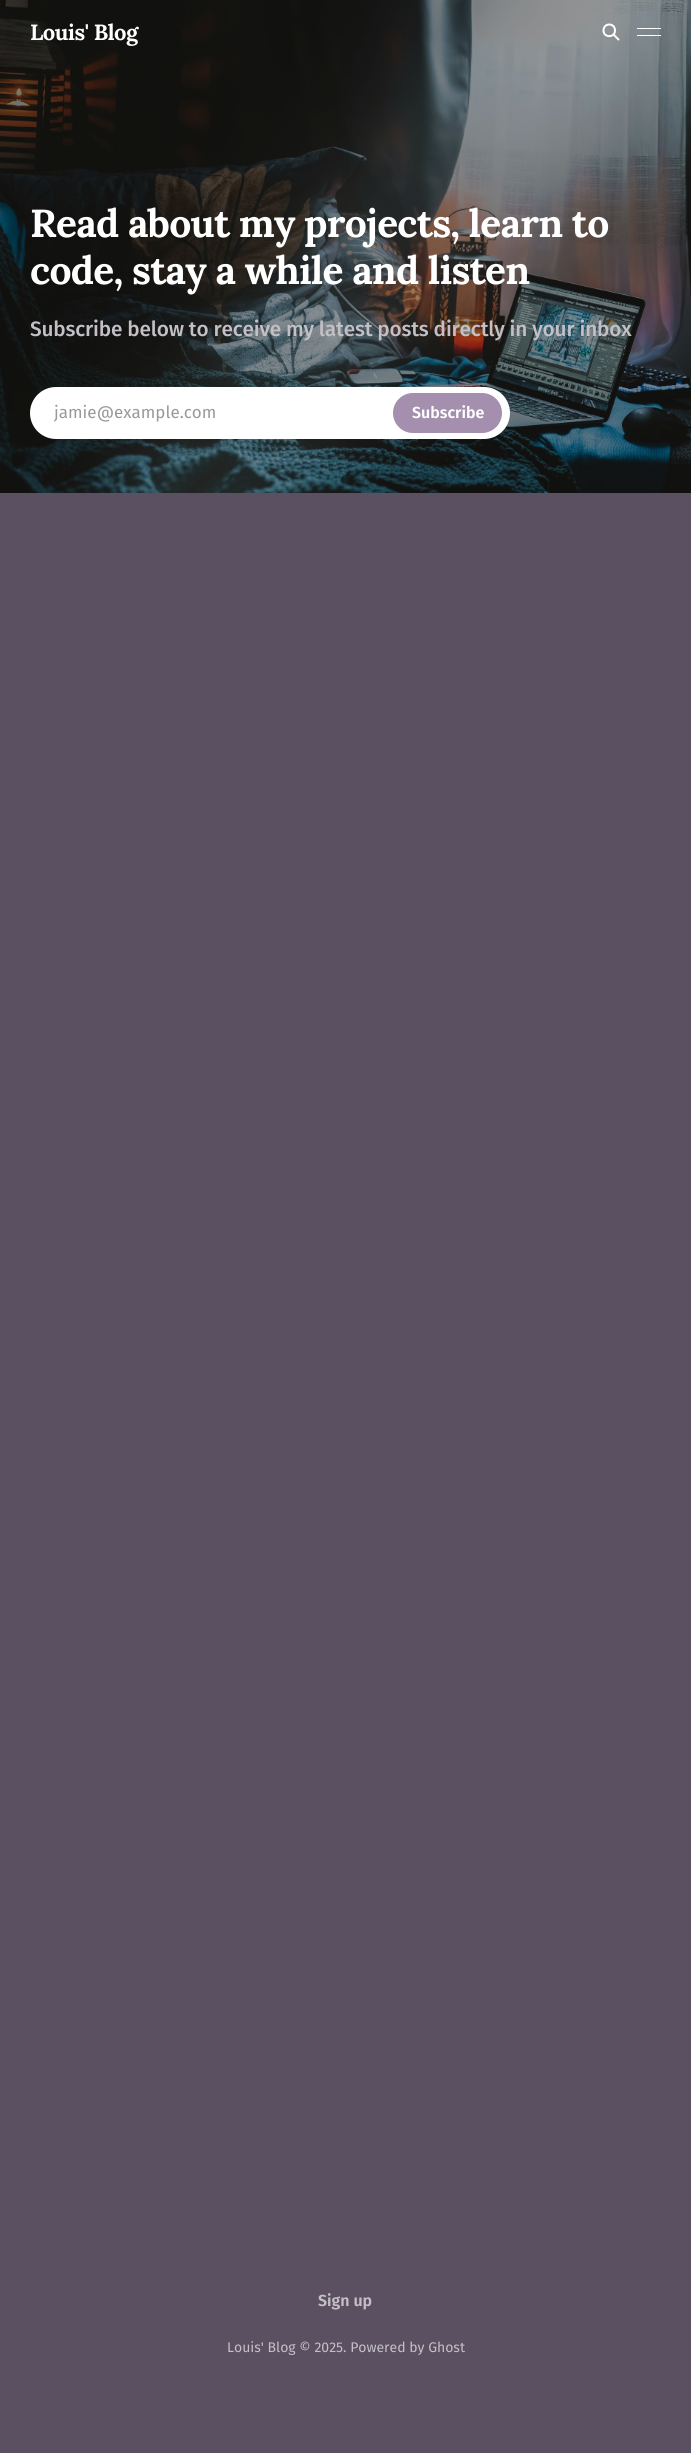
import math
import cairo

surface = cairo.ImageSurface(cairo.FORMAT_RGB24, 691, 2453)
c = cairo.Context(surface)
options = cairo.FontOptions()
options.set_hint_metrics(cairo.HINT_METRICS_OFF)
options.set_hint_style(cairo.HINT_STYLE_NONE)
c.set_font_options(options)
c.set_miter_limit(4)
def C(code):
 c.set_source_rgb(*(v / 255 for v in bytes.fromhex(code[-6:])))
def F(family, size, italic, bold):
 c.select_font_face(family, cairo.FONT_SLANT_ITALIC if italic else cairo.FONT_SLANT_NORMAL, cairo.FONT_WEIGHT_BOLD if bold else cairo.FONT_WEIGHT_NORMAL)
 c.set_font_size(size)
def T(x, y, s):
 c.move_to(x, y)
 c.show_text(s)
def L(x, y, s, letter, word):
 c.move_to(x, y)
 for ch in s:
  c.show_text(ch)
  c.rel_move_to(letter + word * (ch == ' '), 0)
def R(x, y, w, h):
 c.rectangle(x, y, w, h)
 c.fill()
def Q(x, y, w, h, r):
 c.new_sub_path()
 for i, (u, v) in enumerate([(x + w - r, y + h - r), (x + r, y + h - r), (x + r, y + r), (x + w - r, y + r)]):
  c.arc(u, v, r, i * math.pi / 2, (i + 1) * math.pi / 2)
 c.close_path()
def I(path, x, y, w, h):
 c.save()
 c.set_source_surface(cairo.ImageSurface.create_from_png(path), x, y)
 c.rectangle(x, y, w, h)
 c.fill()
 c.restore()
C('5b5061')
c.paint()
I('1.png',0,0,691,493)
F('Lora',22,0,1)
C('ffffff')
L(30,40,'Louis\' Blog',-.5,0)
c.new_path()
c.move_to(618.5,39.5)
c.line_to(613.5,34.5)
c.close_path()
c.move_to(615,30.5)
c.curve_to(615,38,603.5,38,603.5,30.5)
c.curve_to(603.5,22.5,615,22.5,615,30.5)
c.close_path()
c.set_line_cap(cairo.LINE_CAP_ROUND)
c.set_line_join(cairo.LINE_JOIN_ROUND)
c.stroke()
R(637,28,24,1)
R(637,35,24,1)
F('Lora',39,0,1)
L(30,237,'Read about my projects, learn to',-.75,0)
L(30,284,'code, stay a while and listen',-.75,0)
F('Fira Sans Medium',20.8,0,0)
C('c4c0c6')
L(30,336,'Subscribe below to receive my latest posts directly in your inbox',-.17,0)
C('ffffff')
Q(30,387,480,52,26)
c.fill()
F('Fira Sans',17,0,0)
C('999999')
T(54,418,'jamie@example.com')
C('a48faf')
Q(393,393,109,40,20)
c.fill()
F('Fira Sans SemiBold',16,0,0)
C('ffffff')
T(412,418,'Subscribe')
C('c4c0c6')
T(318,2306,'Sign up')
F('Fira Sans',14,0,0)
T(227,2352,'Louis\' Blog © 2025. Powered by Ghost')
surface.write_to_png('o.png')
